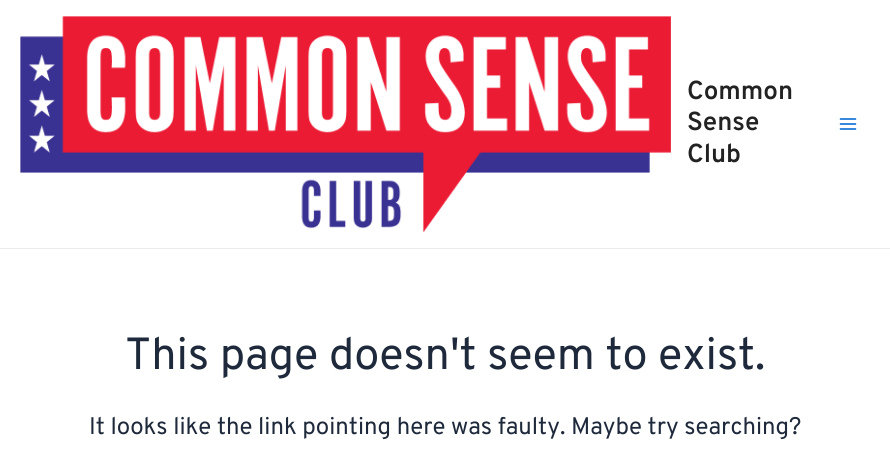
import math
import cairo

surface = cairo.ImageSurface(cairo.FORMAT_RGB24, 890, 460)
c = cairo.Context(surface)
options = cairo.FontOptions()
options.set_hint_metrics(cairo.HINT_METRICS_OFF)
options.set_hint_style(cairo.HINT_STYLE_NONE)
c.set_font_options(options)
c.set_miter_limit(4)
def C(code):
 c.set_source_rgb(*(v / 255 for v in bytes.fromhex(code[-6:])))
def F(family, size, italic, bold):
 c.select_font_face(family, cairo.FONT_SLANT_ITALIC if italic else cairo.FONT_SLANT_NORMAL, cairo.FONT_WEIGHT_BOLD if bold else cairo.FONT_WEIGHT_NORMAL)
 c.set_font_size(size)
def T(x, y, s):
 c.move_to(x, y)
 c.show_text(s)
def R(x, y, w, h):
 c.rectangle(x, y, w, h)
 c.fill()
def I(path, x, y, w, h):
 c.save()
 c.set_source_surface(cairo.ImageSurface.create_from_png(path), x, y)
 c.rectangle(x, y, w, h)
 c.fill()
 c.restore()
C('ffffff')
c.paint()
C('eaeaea')
R(0,248,890,1)
I('1.png',20,16,651,216)
F('Overpass SemiBold',26,0,0)
C('222222')
T(687,99,'Common')
T(687,130,'Sense')
T(687,162,'Club')
I('2.png',839,118,18,12)
F('Overpass',45,0,0)
C('1e293b')
T(125,369,'This page doesn\'t seem to exist.')
F('Overpass',24,0,0)
T(89,434,'It looks like the link pointing here was faulty. Maybe try searching?')
surface.write_to_png('o.png')
